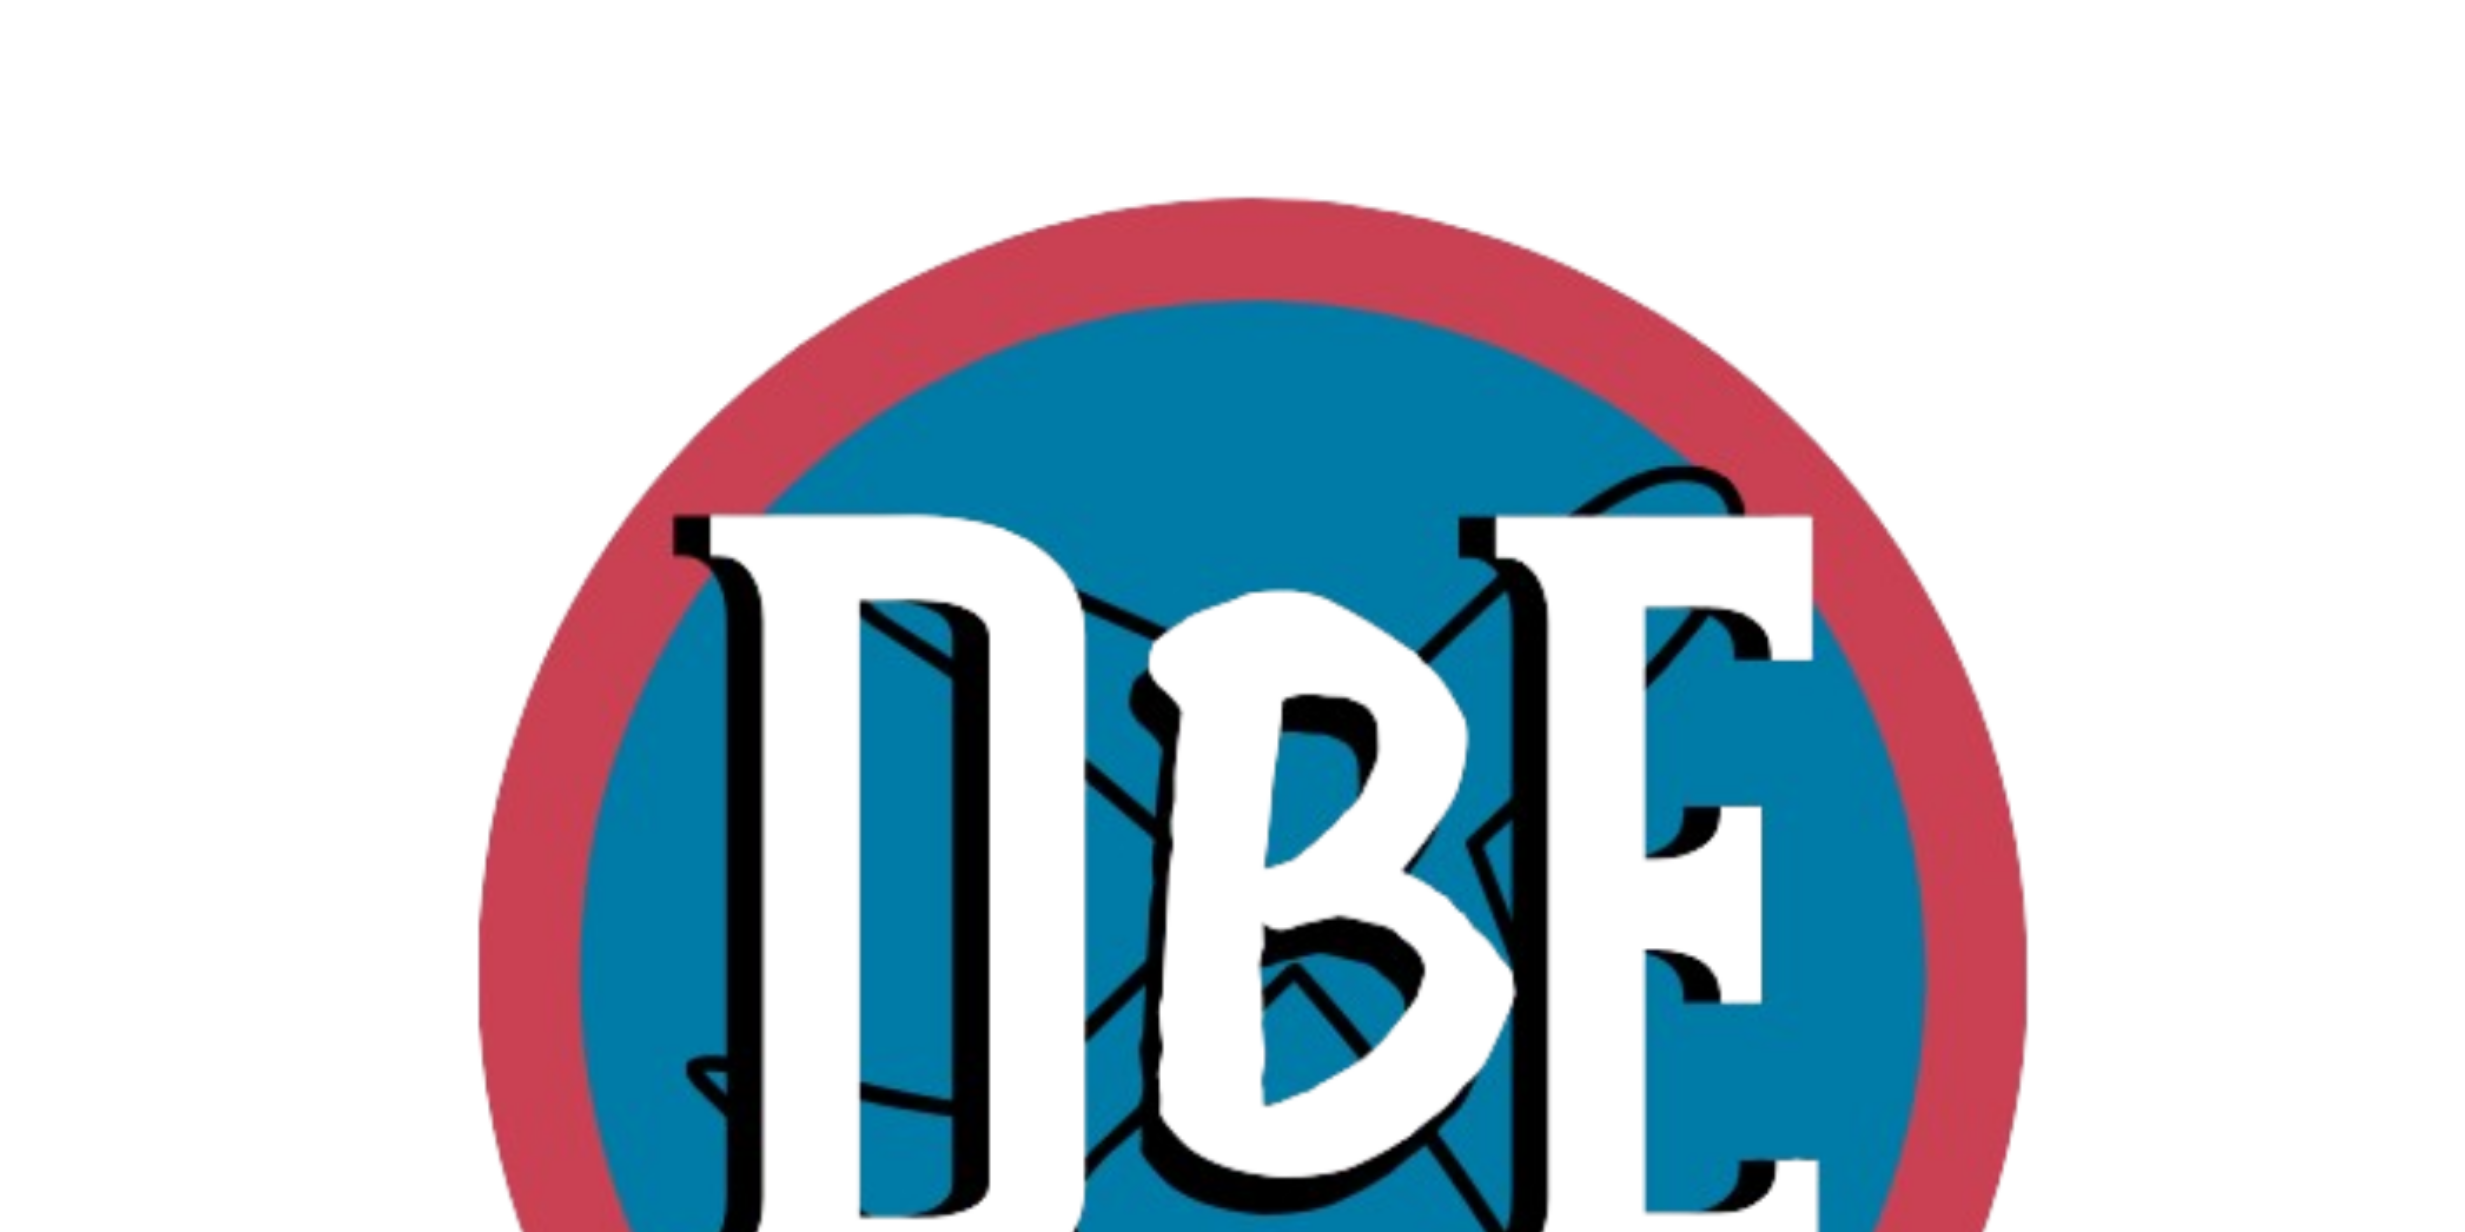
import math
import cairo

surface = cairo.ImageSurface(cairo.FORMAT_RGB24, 2465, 1232)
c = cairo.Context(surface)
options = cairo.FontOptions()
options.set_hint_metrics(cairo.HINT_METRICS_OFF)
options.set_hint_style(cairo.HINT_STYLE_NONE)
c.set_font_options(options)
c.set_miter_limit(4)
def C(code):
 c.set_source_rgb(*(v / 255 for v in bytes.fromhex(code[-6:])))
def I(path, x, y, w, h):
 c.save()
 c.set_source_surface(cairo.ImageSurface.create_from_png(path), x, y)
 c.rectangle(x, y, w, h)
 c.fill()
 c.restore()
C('ffffff')
c.paint()
I('1.png',477,195,1553,1037)
surface.write_to_png('o.png')
